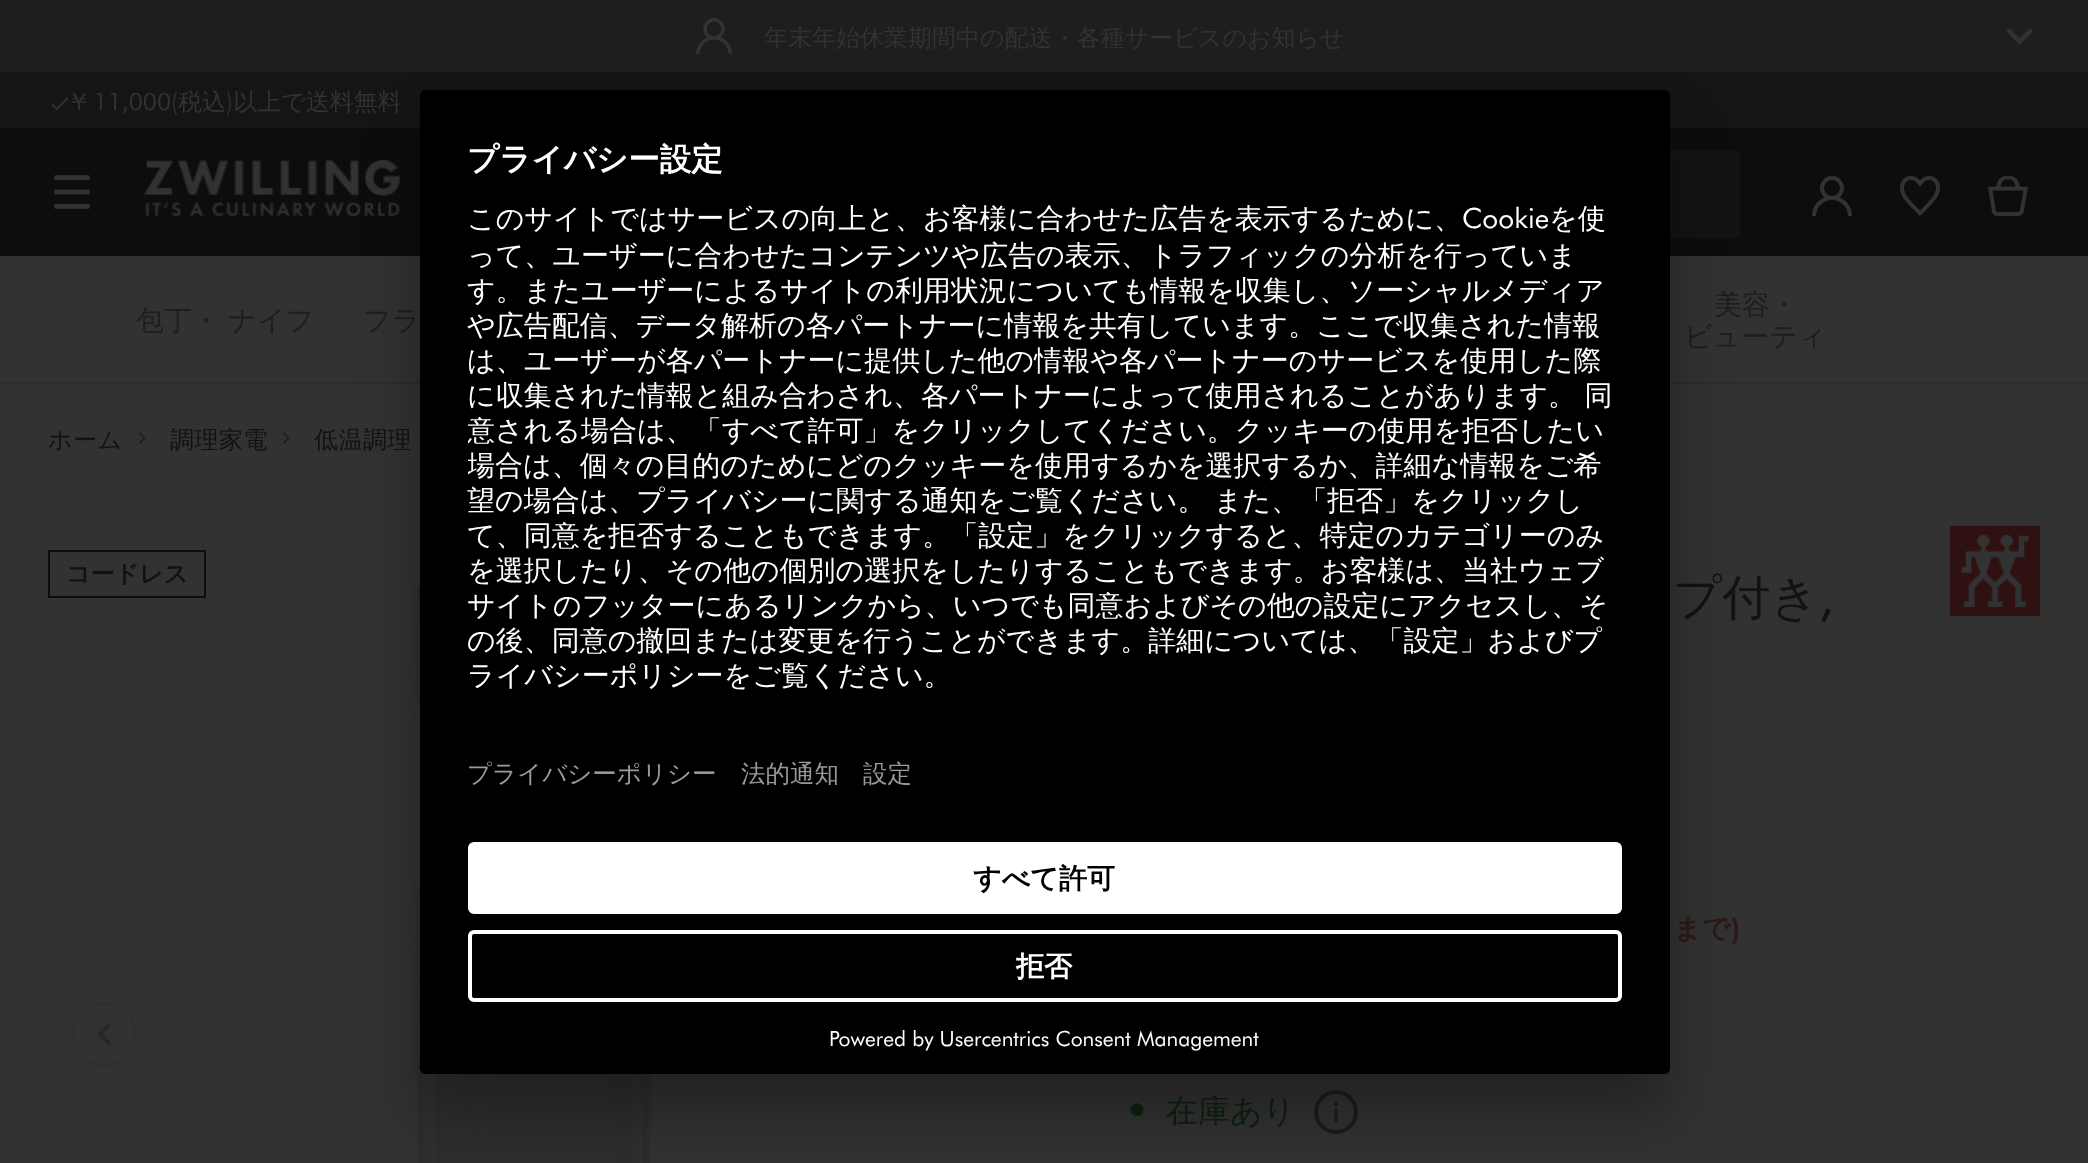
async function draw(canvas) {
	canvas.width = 2088;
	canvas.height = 1163;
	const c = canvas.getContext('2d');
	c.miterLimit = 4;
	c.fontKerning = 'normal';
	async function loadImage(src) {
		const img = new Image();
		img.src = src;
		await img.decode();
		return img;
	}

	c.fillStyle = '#151515';
	c.fillRect(0, 0, 2088, 1163);
	c.fillStyle = '#201e1d';
	c.fillRect(0, 0, 2088, 72);
	c.drawImage(await loadImage('img1.png'), 696, 18, 36, 36);
	c.font = '500 24px WenQuanYi Zen Hei';
	c.fillStyle = '#323232';
	c.fillText('年末年始休業期間中の配送・各種サービスのお知らせ', 764, 46);
	c.drawImage(await loadImage('img2.png'), 2006, 28, 27, 17);
	c.font = '24px Futura';
	c.fillText('¥ 11,000(', 72, 110);
	c.font = '500 24px WenQuanYi Zen Hei';
	c.fillText('税込 以上で送料無料', 178, 110);
	c.drawImage(await loadImage('img3.png'), 51, 97, 18, 14);
	c.font = '24px Futura';
	c.fillText(')', 226, 110);
	c.fillStyle = '#0d0d0d';
	c.fillRect(0, 128, 2088, 128);
	c.drawImage(await loadImage('img4.png'), 54, 175, 36, 34);
	c.drawImage(await loadImage('img5.png'), 144, 160, 256, 57);
	c.fillStyle = '#141313';
	c.beginPath();
	c.roundRect(1480, 150, 260, 88, 6);
	c.fill();
	c.drawImage(await loadImage('img6.png'), 1812, 176, 40, 40);
	c.drawImage(await loadImage('img7.png'), 1900, 176, 40, 40);
	c.drawImage(await loadImage('img8.png'), 1988, 176, 40, 40);
	c.fillStyle = '#323232';
	c.fillRect(0, 256, 2088, 126);
	c.fillStyle = '#2c2c2c';
	c.fillRect(0, 382, 2088, 2);
	c.font = '500 28px WenQuanYi Zen Hei';
	c.fillStyle = '#201d1c';
	for (const [text, x, y] of [
		['包丁・ ナイフ', 136, 330],
		['フラ', 363, 330],
		['美容・', 1714, 314],
		['ビューティ', 1684, 346],
	]) {
		c.fillText(text, x, y);
	}
	c.fillStyle = '#323232';
	c.fillRect(0, 384, 2088, 779);
	c.letterSpacing = '0.5px';
	c.font = '500 24px WenQuanYi Zen Hei';
	c.fillStyle = '#121211';
	c.fillText('ホーム', 48, 448);
	c.drawImage(await loadImage('img9.png'), 139, 432, 7, 12);
	c.fillText('調理家電', 170, 448);
	c.drawImage(await loadImage('img9.png'), 283, 432, 7, 12);
	c.fillText('低温調理', 314, 448);
	c.drawImage(await loadImage('img10.png'), 24, 524, 1020, 639);
	c.beginPath();
	c.arc(104, 1034, 31, 0, 2 * Math.PI);
	c.strokeStyle = '#2f2f2f';
	c.lineWidth = 2;
	c.stroke();
	c.drawImage(await loadImage('img11.png'), 97, 1022, 14, 24);
	c.strokeStyle = '#0d0d0d';
	c.strokeRect(49, 551, 156, 46);
	c.letterSpacing = '0px';
	c.font = 'bold 24px WenQuanYi Zen Hei';
	c.fillText('コードレス', 66, 582);
	c.font = '500 48px WenQuanYi Zen Hei';
	c.fillText('プ付き', 1673, 614);
	c.font = '500 48px Futura';
	c.fillText(',', 1819, 614);
	c.drawImage(await loadImage('img12.png'), 1950, 526, 90, 91);
	c.font = 'bold 28px WenQuanYi Zen Hei';
	c.fillStyle = '#2e1816';
	c.fillText('まで', 1673, 938);
	c.font = 'bold 28px Futura';
	c.fillText(')', 1731, 938);
	c.font = 'bold 44px Futura';
	c.fillStyle = '#0e2110';
	c.fillText('•', 1124, 1126);
	c.font = '500 32px WenQuanYi Zen Hei';
	c.fillText('在庫あり', 1166, 1122);
	c.drawImage(await loadImage('img13.png'), 1314, 1090, 44, 44);
	c.fillStyle = '#0000004d';
	c.filter = 'blur(28px)';
	c.beginPath();
	c.roundRect(420, 130, 1250, 984, 6);
	c.fill();
	c.filter = 'none';
	c.fillStyle = '#000';
	c.beginPath();
	c.roundRect(420, 90, 1250, 984, 6);
	c.fill();
	c.save();
	c.beginPath();
	c.roundRect(420, 90, 1250, 984, 6);
	c.clip();
	c.beginPath();
	c.roundRect(420, 90, 1250, 728, [6, 6, 0, 0]);
	c.clip();
	c.fillRect(420, 92, 1250, 726);
	c.restore();
	c.font = 'bold 31.5px WenQuanYi Zen Hei';
	c.fillStyle = '#fff';
	c.fillText('プライバシー設定', 467, 170);
	c.font = '500 28px WenQuanYi Zen Hei';
	c.fillText('このサイトではサービスの向上と、お客様に合わせた広告を表示するために、', 467, 228);
	c.font = '28px Futura';
	c.fillText('Cookie', 1462, 228);
	c.font = '500 28px WenQuanYi Zen Hei';
	for (const [text, x, y] of [
		['を使', 1549, 228],
		['って、ユーザーに合わせたコンテンツや広告の表示、トラフィックの分析を行っていま', 467, 265],
		['す。またユーザーによるサイトの利用状況についても情報を収集し、ソーシャルメディア', 467, 300],
		['や広告配信、データ解析の各パートナーに情報を共有しています。ここで収集された情報', 467, 335],
		['は、ユーザーが各パートナーに提供した他の情報や各パートナーのサービスを使用した際', 467, 370],
		['に収集された情報と組み合わされ、各パートナーによって使用されることがあります。 同', 467, 405],
	]) {
		c.fillText(text, x, y);
	}
	c.save();
	c.beginPath();
	c.rect(468, 192, 1154, 510);
	c.clip();
	c.fillText('意される場合は、「すべて許可」をクリックしてください。クッキーの使用を拒否したい', 467, 440);
	c.fillText('場合は、個々の目的のためにどのクッキーを使用するかを選択するか、詳細な情報をご希', 467, 475);
	c.restore();
	for (const [text, x, y] of [
		['望の場合は、プライバシーに関する通知をご覧ください。 また、「拒否」をクリックし', 467, 510],
		['て、同意を拒否することもできます。「設定」をクリックすると、特定のカテゴリーのみ', 467, 545],
		['を選択したり、その他の個別の選択をしたりすることもできます。お客様は、当社ウェブ', 467, 580],
		['サイトのフッターにあるリンクから、いつでも同意およびその他の設定にアクセスし、そ', 467, 615],
		['の後、同意の撤回または変更を行うことができます。詳細については、「設定」およびプ', 467, 650],
		['ライバシーポリシーをご覧ください。', 467, 685],
	]) {
		c.fillText(text, x, y);
	}
	c.font = '500 24.5px WenQuanYi Zen Hei';
	c.fillStyle = '#999';
	for (const [text, x, y] of [
		['プライバシーポリシー', 467, 782],
		['法的通知', 741, 782],
		['設定', 863, 782],
	]) {
		c.fillText(text, x, y);
	}
	c.fillStyle = '#000';
	c.beginPath();
	c.roundRect(420, 818, 1250, 256, [0, 0, 6, 6]);
	c.fill();
	c.fillStyle = '#fff';
	c.beginPath();
	c.roundRect(470, 844, 1150, 68, 4);
	c.fill();
	c.strokeStyle = '#fff';
	c.lineWidth = 4;
	c.stroke();
	c.font = 'bold 28px WenQuanYi Zen Hei';
	c.fillStyle = '#000';
	c.fillText('すべて許可', 973, 888);
	c.beginPath();
	c.roundRect(470, 932, 1150, 68, 4);
	c.stroke();
	c.fillStyle = '#fff';
	c.fillText('拒否', 1016, 976);
	c.font = '21px Futura';
	c.fillText('Powered by Usercentrics Consent Management', 829, 1046);
}

draw(document.querySelector('canvas'));
